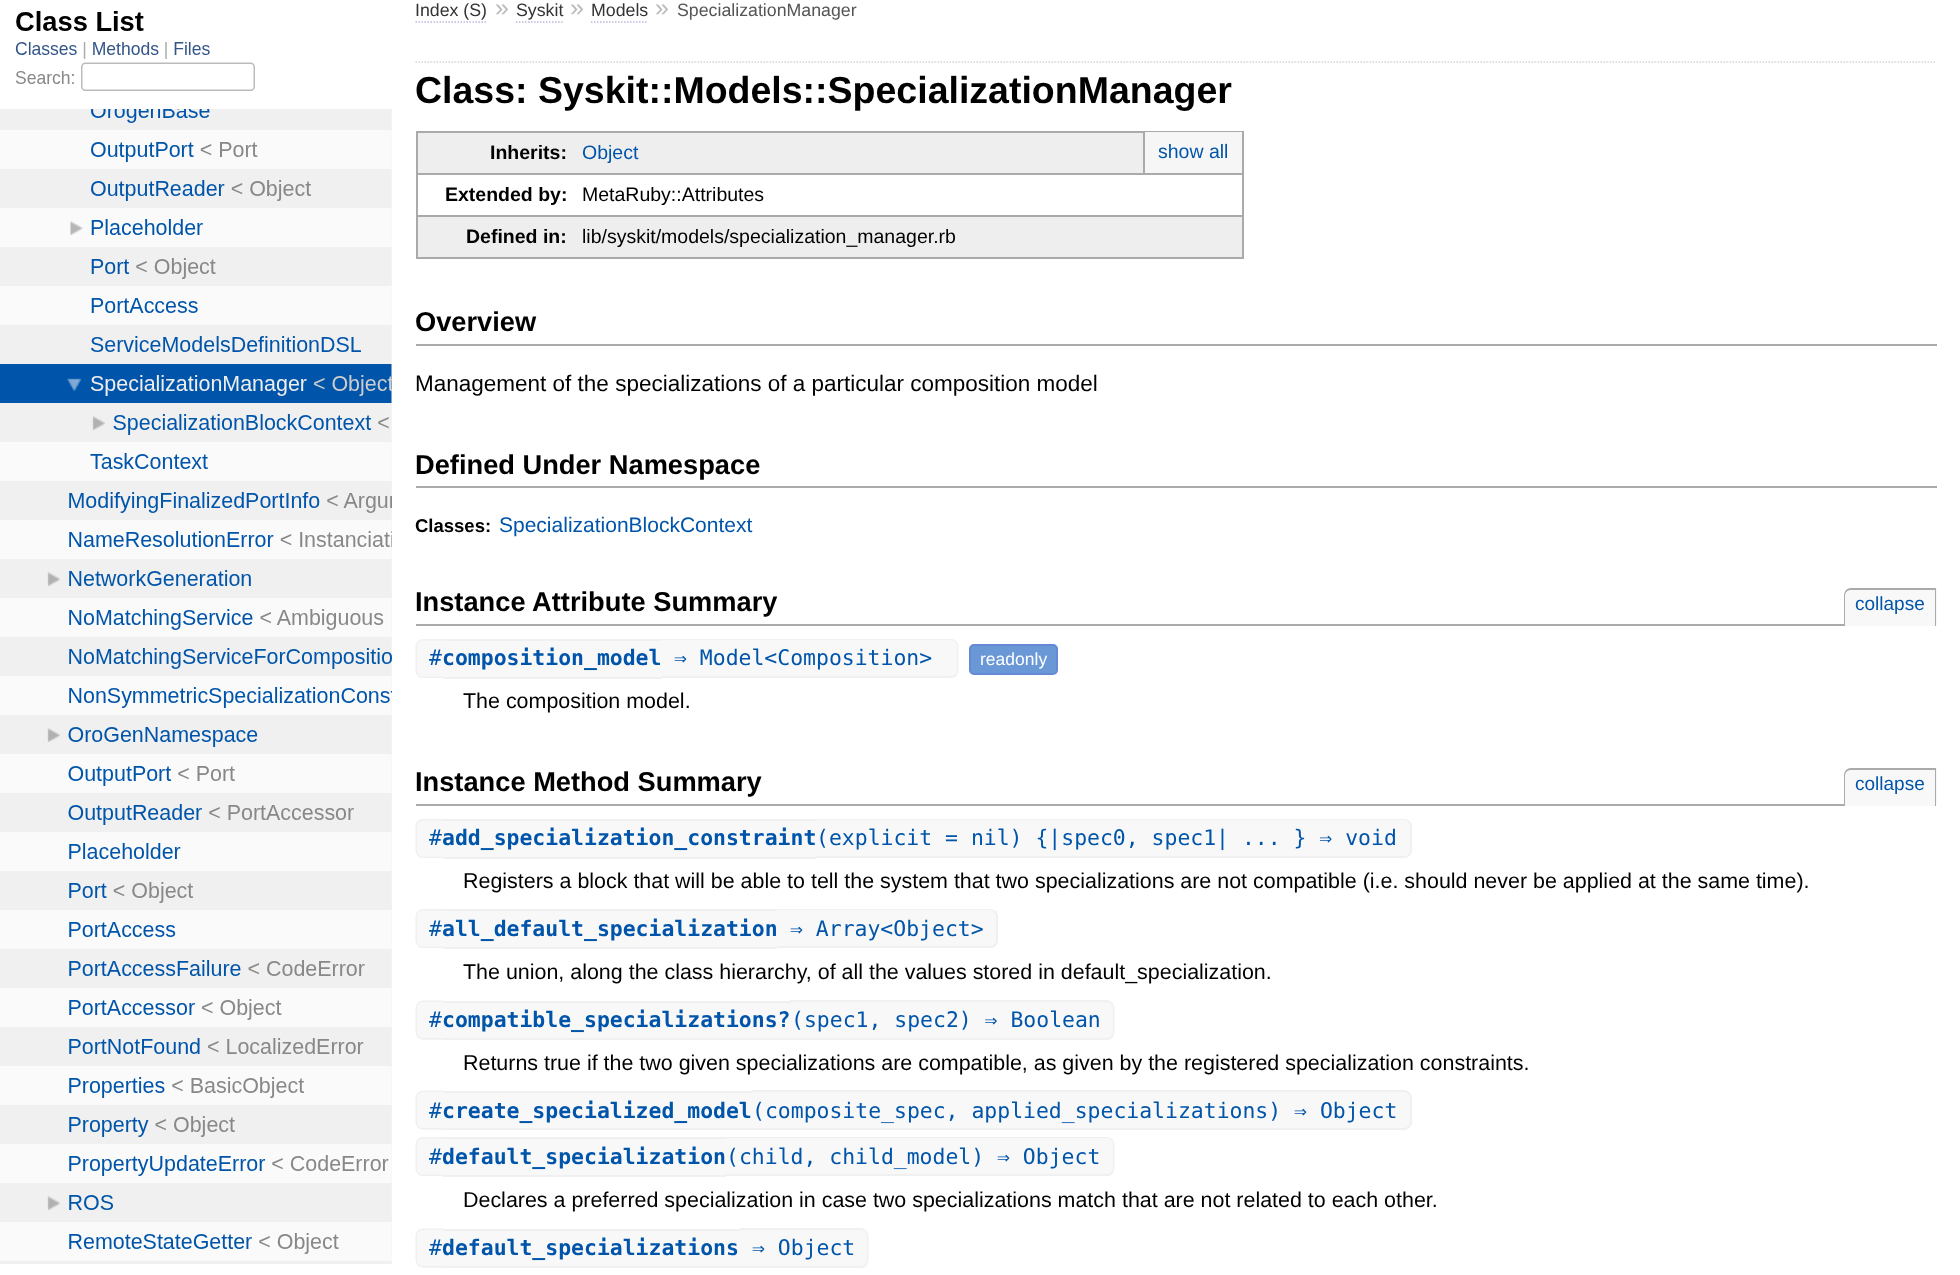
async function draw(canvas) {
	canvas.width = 1960;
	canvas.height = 1275;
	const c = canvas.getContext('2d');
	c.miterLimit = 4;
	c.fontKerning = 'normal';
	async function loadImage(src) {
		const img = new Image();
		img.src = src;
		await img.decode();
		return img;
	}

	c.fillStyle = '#fff';
	c.fillRect(0, 0, 1960, 1275);
	c.drawImage(await loadImage('img1.png'), 0, 1, 392, 1263);
	c.font = '17.75px Liberation Sans';
	c.fillStyle = '#333';
	c.fillText('Index (S)', 415, 16);
	c.beginPath();
	c.moveTo(415.5, 22);
	c.lineTo(487.5, 22);
	c.strokeStyle = '#bbd';
	c.lineWidth = 1.5;
	c.setLineDash([1.5, 1.5]);
	c.stroke();
	c.font = '25px Liberation Sans';
	c.fillStyle = '#bbb';
	c.fillText('»', 495, 16);
	c.font = '17.75px Liberation Sans';
	c.fillStyle = '#333';
	c.fillText('Syskit', 516, 16);
	c.beginPath();
	c.moveTo(516, 22);
	c.lineTo(562.5, 22);
	c.stroke();
	c.font = '25px Liberation Sans';
	c.fillStyle = '#bbb';
	c.fillText('»', 570, 16);
	c.font = '17.75px Liberation Sans';
	c.fillStyle = '#333';
	c.fillText('Models', 591, 16);
	c.beginPath();
	c.moveTo(591, 22);
	c.lineTo(648, 22);
	c.stroke();
	c.font = '25px Liberation Sans';
	c.fillStyle = '#bbb';
	c.fillText('»', 655, 16);
	c.font = '17.75px Liberation Sans';
	c.fillStyle = '#555';
	c.fillText('SpecializationManager', 677, 16);
	c.beginPath();
	c.moveTo(415.5, 62);
	c.lineTo(1936.5, 62);
	c.strokeStyle = '#d5d5d5';
	c.stroke();
	c.font = 'bold 37.5px Liberation Sans';
	c.fillStyle = '#000';
	c.fillText('Class: Syskit::Models::SpecializationManager', 415, 103);
	for (const [x, y, w, h, color] of [
		[418, 133, 725, 40, '#eee'],
		[416, 131, 828, 2, '#aaa'],
		[416, 131, 2, 42, '#aaa'],
	]) {
		c.fillStyle = color;
		c.fillRect(x, y, w, h);
	}
	c.font = 'bold 19.5px Liberation Sans';
	c.fillStyle = '#000';
	c.fillText('Inherits:', 490, 159);
	for (const [x, y, w, h, color] of [
		[416, 173, 828, 2, '#aaa'],
		[416, 215, 828, 2, '#aaa'],
		[1242, 131, 2, 127, '#aaa'],
	]) {
		c.fillStyle = color;
		c.fillRect(x, y, w, h);
	}
	c.font = '19.5px Liberation Sans';
	c.fillStyle = '#05a';
	c.fillText('Object', 582, 159);
	c.fillStyle = '#f6f6f6';
	c.fillRect(1145, 132, 97, 41);
	c.fillStyle = '#aaa';
	c.fillRect(1143, 132, 2, 41);
	c.fillStyle = '#05a';
	c.fillText('show all', 1158, 158);
	c.fillStyle = '#aaa';
	c.fillRect(416, 173, 2, 42);
	c.font = 'bold 19.5px Liberation Sans';
	c.fillStyle = '#000';
	c.fillText('Extended by:', 445, 201);
	c.font = '19.5px Liberation Sans';
	c.fillText('MetaRuby::Attributes', 582, 201);
	for (const [x, y, w, h, color] of [
		[418, 217, 824, 40, '#eee'],
		[416, 257, 166, 2, '#aaa'],
		[416, 215, 2, 43, '#aaa'],
	]) {
		c.fillStyle = color;
		c.fillRect(x, y, w, h);
	}
	c.font = 'bold 19.5px Liberation Sans';
	c.fillStyle = '#000';
	c.fillText('Defined in:', 466, 243);
	c.fillStyle = '#aaa';
	c.fillRect(582, 257, 662, 2);
	c.font = '19.5px Liberation Sans';
	c.fillStyle = '#000';
	c.fillText('lib/syskit/models/specialization_manager.rb', 582, 243);
	c.fillStyle = '#aaa';
	c.fillRect(416, 344, 1521, 2);
	c.font = 'bold 27.25px Liberation Sans';
	c.fillStyle = '#000';
	c.fillText('Overview', 415, 331);
	c.font = '22.5px Liberation Sans';
	c.fillText('Management of the specializations of a particular composition model', 415, 391);
	c.fillStyle = '#aaa';
	c.fillRect(416, 486, 1521, 2);
	c.font = 'bold 27.25px Liberation Sans';
	c.fillStyle = '#000';
	c.fillText('Defined Under Namespace', 415, 474);
	c.font = 'bold 18.5px Liberation Sans';
	c.fillText('Classes:', 415, 532);
	c.font = '21px Liberation Sans';
	c.fillStyle = '#05a';
	c.fillText('SpecializationBlockContext', 499, 532);
	c.fillStyle = '#aaa';
	c.fillRect(416, 624, 1428, 2);
	c.font = 'bold 27.25px Liberation Sans';
	c.fillStyle = '#000';
	c.fillText('Instance Attribute Summary', 415, 611);
	c.fillStyle = '#f8f8f8';
	c.beginPath();
	c.roundRect(1844, 588, 93, 38, [8, 0, 0, 0]);
	c.fill();
	c.fillStyle = '#aaa';
	c.beginPath();
	c.moveTo(1851, 588);
	c.lineTo(1936, 588);
	c.lineTo(1936, 626);
	c.lineTo(1844, 626);
	c.lineTo(1844, 596);
	c.bezierCurveTo(1844, 591, 1847, 588, 1851, 588);
	c.closePath();
	c.moveTo(1851, 590);
	c.lineTo(1935, 590);
	c.lineTo(1935, 626);
	c.lineTo(1845, 626);
	c.lineTo(1845, 596);
	c.bezierCurveTo(1845, 592, 1848, 590, 1851, 590);
	c.closePath();
	c.fill('evenodd');
	c.font = '19px Liberation Sans';
	c.fillStyle = '#05a';
	c.fillText('collapse', 1855, 610);
	c.fillStyle = '#f8f8f8';
	c.beginPath();
	c.roundRect(416, 639, 27, 39, [8, 0, 0, 8]);
	c.fill();
	c.fillStyle = '#f0f0f0';
	c.beginPath();
	c.moveTo(423, 639);
	c.lineTo(442.5, 639);
	c.lineTo(442.5, 678);
	c.lineTo(423, 678);
	c.bezierCurveTo(419, 678, 415.5, 674.5, 415.5, 670.5);
	c.lineTo(415.5, 646.5);
	c.bezierCurveTo(415.5, 642.5, 419, 639, 423, 639);
	c.closePath();
	c.moveTo(423, 640.5);
	c.lineTo(442.5, 640.5);
	c.lineTo(442.5, 676.5);
	c.lineTo(423, 676.5);
	c.bezierCurveTo(419.5, 676.5, 417, 674, 417, 670.5);
	c.lineTo(417, 646.5);
	c.bezierCurveTo(417, 643, 419.5, 640.5, 423, 640.5);
	c.closePath();
	c.fill('evenodd');
	c.font = '21.45px DejaVu Sans Mono';
	c.fillStyle = '#05a';
	c.fillText('#', 429, 665);
	c.fillStyle = '#f0f0f0';
	c.fillRect(443, 639, 219, 2);
	c.fillStyle = '#f8f8f8';
	c.fillRect(443, 641, 219, 36);
	c.font = 'bold 21.45px DejaVu Sans Mono';
	c.fillStyle = '#05a';
	c.fillText('composition_model', 442, 665);
	c.fillStyle = '#f0f0f0';
	c.fillRect(443, 677, 219, 2);
	c.fillStyle = '#f8f8f8';
	c.beginPath();
	c.roundRect(662, 639, 297, 39, [0, 8, 8, 0]);
	c.fill();
	c.fillStyle = '#f0f0f0';
	c.beginPath();
	c.moveTo(662, 639);
	c.lineTo(951, 639);
	c.bezierCurveTo(955, 639, 958, 642, 958, 646);
	c.lineTo(958, 670);
	c.bezierCurveTo(958, 675, 955, 678, 951, 678);
	c.lineTo(662, 678);
	c.closePath();
	c.moveTo(662, 640);
	c.lineTo(951, 640);
	c.bezierCurveTo(954, 640, 957, 643, 957, 646);
	c.lineTo(957, 670);
	c.bezierCurveTo(957, 674, 954, 676, 951, 676);
	c.lineTo(662, 676);
	c.closePath();
	c.fill('evenodd');
	c.font = '21.45px DejaVu Sans Mono';
	c.fillStyle = '#05a';
	c.fillText('⇒ Model<Composition>', 674, 665);
	c.fillStyle = '#6a98d6';
	c.beginPath();
	c.roundRect(970, 645, 87, 29, 4);
	c.fill();
	c.strokeStyle = '#6689d6';
	c.lineWidth = 2;
	c.setLineDash([]);
	c.stroke();
	c.font = '17.5px Liberation Sans';
	c.fillStyle = '#fff';
	c.fillText('readonly', 980, 665);
	c.font = '21.45px Liberation Sans';
	c.fillStyle = '#000';
	c.fillText('The composition model.', 463, 708);
	c.fillStyle = '#aaa';
	c.fillRect(416, 804, 1428, 2);
	c.font = 'bold 27.25px Liberation Sans';
	c.fillStyle = '#000';
	c.fillText('Instance Method Summary', 415, 791);
	c.fillStyle = '#f8f8f8';
	c.beginPath();
	c.roundRect(1844, 768, 93, 38, [8, 0, 0, 0]);
	c.fill();
	c.fillStyle = '#aaa';
	c.beginPath();
	c.moveTo(1851, 768);
	c.lineTo(1936, 768);
	c.lineTo(1936, 806);
	c.lineTo(1844, 806);
	c.lineTo(1844, 776);
	c.bezierCurveTo(1844, 771, 1847, 768, 1851, 768);
	c.closePath();
	c.moveTo(1851, 770);
	c.lineTo(1935, 770);
	c.lineTo(1935, 806);
	c.lineTo(1845, 806);
	c.lineTo(1845, 776);
	c.bezierCurveTo(1845, 772, 1848, 770, 1851, 770);
	c.closePath();
	c.fill('evenodd');
	c.font = '19px Liberation Sans';
	c.fillStyle = '#05a';
	c.fillText('collapse', 1855, 790);
	c.fillStyle = '#f8f8f8';
	c.beginPath();
	c.roundRect(416, 819, 27, 39, [8, 0, 0, 8]);
	c.fill();
	c.fillStyle = '#f0f0f0';
	c.beginPath();
	c.moveTo(423, 819);
	c.lineTo(442.5, 819);
	c.lineTo(442.5, 858);
	c.lineTo(423, 858);
	c.bezierCurveTo(419, 858, 415.5, 854.5, 415.5, 850.5);
	c.lineTo(415.5, 826.5);
	c.bezierCurveTo(415.5, 822.5, 419, 819, 423, 819);
	c.closePath();
	c.moveTo(423, 820.5);
	c.lineTo(442.5, 820.5);
	c.lineTo(442.5, 856.5);
	c.lineTo(423, 856.5);
	c.bezierCurveTo(419.5, 856.5, 417, 854, 417, 850.5);
	c.lineTo(417, 826.5);
	c.bezierCurveTo(417, 823, 419.5, 820.5, 423, 820.5);
	c.closePath();
	c.fill('evenodd');
	c.font = '21.45px DejaVu Sans Mono';
	c.fillStyle = '#05a';
	c.fillText('#', 429, 845);
	c.fillStyle = '#f0f0f0';
	c.fillRect(443, 819, 373, 2);
	c.fillStyle = '#f8f8f8';
	c.fillRect(443, 821, 373, 36);
	c.font = 'bold 21.45px DejaVu Sans Mono';
	c.fillStyle = '#05a';
	c.fillText('add_specialization_constraint', 442, 845);
	c.fillStyle = '#f0f0f0';
	c.fillRect(443, 857, 373, 2);
	c.fillStyle = '#f8f8f8';
	c.beginPath();
	c.roundRect(816, 819, 596, 39, [0, 8, 8, 0]);
	c.fill();
	c.fillStyle = '#f0f0f0';
	c.beginPath();
	c.moveTo(816, 819);
	c.lineTo(1404, 819);
	c.bezierCurveTo(1408, 819, 1412, 822, 1412, 826);
	c.lineTo(1412, 850);
	c.bezierCurveTo(1412, 855, 1408, 858, 1404, 858);
	c.lineTo(816, 858);
	c.closePath();
	c.moveTo(816, 820);
	c.lineTo(1404, 820);
	c.bezierCurveTo(1407, 820, 1410, 823, 1410, 826);
	c.lineTo(1410, 850);
	c.bezierCurveTo(1410, 854, 1407, 856, 1404, 856);
	c.lineTo(816, 856);
	c.closePath();
	c.fill('evenodd');
	c.font = '21.45px DejaVu Sans Mono';
	c.fillStyle = '#05a';
	c.fillText('(explicit = nil) {|spec0, spec1| ... } ⇒ void', 816, 845);
	c.font = '21.45px Liberation Sans';
	c.fillStyle = '#000';
	c.fillText('Registers a block that will be able to tell the system that two specializations are not compatible (i.e. should never be applied at the same time).', 463, 888);
	c.fillStyle = '#f8f8f8';
	c.beginPath();
	c.roundRect(416, 909, 27, 39, [8, 0, 0, 8]);
	c.fill();
	c.fillStyle = '#f0f0f0';
	c.beginPath();
	c.moveTo(423, 909);
	c.lineTo(442.5, 909);
	c.lineTo(442.5, 948);
	c.lineTo(423, 948);
	c.bezierCurveTo(419, 948, 415.5, 944.5, 415.5, 940.5);
	c.lineTo(415.5, 916.5);
	c.bezierCurveTo(415.5, 912.5, 419, 909, 423, 909);
	c.closePath();
	c.moveTo(423, 910.5);
	c.lineTo(442.5, 910.5);
	c.lineTo(442.5, 946.5);
	c.lineTo(423, 946.5);
	c.bezierCurveTo(419.5, 946.5, 417, 944, 417, 940.5);
	c.lineTo(417, 916.5);
	c.bezierCurveTo(417, 913, 419.5, 910.5, 423, 910.5);
	c.closePath();
	c.fill('evenodd');
	c.font = '21.45px DejaVu Sans Mono';
	c.fillStyle = '#05a';
	c.fillText('#', 429, 936);
	c.fillStyle = '#f0f0f0';
	c.fillRect(443, 909, 334, 2);
	c.fillStyle = '#f8f8f8';
	c.fillRect(443, 911, 334, 36);
	c.font = 'bold 21.45px DejaVu Sans Mono';
	c.fillStyle = '#05a';
	c.fillText('all_default_specialization', 442, 936);
	c.fillStyle = '#f0f0f0';
	c.fillRect(443, 947, 334, 2);
	c.fillStyle = '#f8f8f8';
	c.beginPath();
	c.roundRect(777, 909, 221, 39, [0, 8, 8, 0]);
	c.fill();
	c.fillStyle = '#f0f0f0';
	c.beginPath();
	c.moveTo(777, 909);
	c.lineTo(990, 909);
	c.bezierCurveTo(994, 909, 998, 912, 998, 916);
	c.lineTo(998, 940);
	c.bezierCurveTo(998, 945, 994, 948, 990, 948);
	c.lineTo(777, 948);
	c.closePath();
	c.moveTo(777, 910);
	c.lineTo(990, 910);
	c.bezierCurveTo(993, 910, 996, 913, 996, 916);
	c.lineTo(996, 940);
	c.bezierCurveTo(996, 944, 993, 946, 990, 946);
	c.lineTo(777, 946);
	c.closePath();
	c.fill('evenodd');
	c.font = '21.45px DejaVu Sans Mono';
	c.fillStyle = '#05a';
	c.fillText('⇒ Array<Object>', 790, 936);
	c.font = '21.45px Liberation Sans';
	c.fillStyle = '#000';
	c.fillText('The union, along the class hierarchy, of all the values stored in default_specialization.', 463, 979);
	c.fillStyle = '#f8f8f8';
	c.beginPath();
	c.roundRect(416, 1001, 27, 39, [8, 0, 0, 8]);
	c.fill();
	c.fillStyle = '#f0f0f0';
	c.beginPath();
	c.moveTo(423, 1000.5);
	c.lineTo(442.5, 1000.5);
	c.lineTo(442.5, 1039.5);
	c.lineTo(423, 1039.5);
	c.bezierCurveTo(419, 1039.5, 415.5, 1036, 415.5, 1032);
	c.lineTo(415.5, 1008);
	c.bezierCurveTo(415.5, 1004, 419, 1000.5, 423, 1000.5);
	c.closePath();
	c.moveTo(423, 1002);
	c.lineTo(442.5, 1002);
	c.lineTo(442.5, 1038);
	c.lineTo(423, 1038);
	c.bezierCurveTo(419.5, 1038, 417, 1035.5, 417, 1032);
	c.lineTo(417, 1008);
	c.bezierCurveTo(417, 1004.5, 419.5, 1002, 423, 1002);
	c.closePath();
	c.fill('evenodd');
	c.font = '21.45px DejaVu Sans Mono';
	c.fillStyle = '#05a';
	c.fillText('#', 429, 1027);
	c.fillStyle = '#f0f0f0';
	c.fillRect(443, 1001, 348, 2);
	c.fillStyle = '#f8f8f8';
	c.fillRect(443, 1003, 348, 35);
	c.font = 'bold 21.45px DejaVu Sans Mono';
	c.fillStyle = '#05a';
	c.fillText('compatible_specializations?', 442, 1027);
	c.fillStyle = '#f0f0f0';
	c.fillRect(443, 1038, 348, 2);
	c.fillStyle = '#f8f8f8';
	c.beginPath();
	c.roundRect(791, 1001, 324, 39, [0, 8, 8, 0]);
	c.fill();
	c.fillStyle = '#f0f0f0';
	c.beginPath();
	c.moveTo(790, 1000);
	c.lineTo(1107, 1000);
	c.bezierCurveTo(1111, 1000, 1114, 1004, 1114, 1008);
	c.lineTo(1114, 1032);
	c.bezierCurveTo(1114, 1036, 1111, 1040, 1107, 1040);
	c.lineTo(790, 1040);
	c.closePath();
	c.moveTo(790, 1002);
	c.lineTo(1107, 1002);
	c.bezierCurveTo(1110, 1002, 1113, 1005, 1113, 1008);
	c.lineTo(1113, 1032);
	c.bezierCurveTo(1113, 1035, 1110, 1038, 1107, 1038);
	c.lineTo(790, 1038);
	c.closePath();
	c.fill('evenodd');
	c.font = '21.45px DejaVu Sans Mono';
	c.fillStyle = '#05a';
	c.fillText('(spec1, spec2) ⇒ Boolean', 791, 1027);
	c.font = '21.45px Liberation Sans';
	c.fillStyle = '#000';
	c.fillText('Returns true if the two given specializations are compatible, as given by the registered specialization constraints.', 463, 1070);
	c.fillStyle = '#f8f8f8';
	c.beginPath();
	c.roundRect(416, 1091, 27, 39, [8, 0, 0, 8]);
	c.fill();
	c.fillStyle = '#f0f0f0';
	c.beginPath();
	c.moveTo(423, 1090.5);
	c.lineTo(442.5, 1090.5);
	c.lineTo(442.5, 1129.5);
	c.lineTo(423, 1129.5);
	c.bezierCurveTo(419, 1129.5, 415.5, 1126, 415.5, 1122);
	c.lineTo(415.5, 1098);
	c.bezierCurveTo(415.5, 1094, 419, 1090.5, 423, 1090.5);
	c.closePath();
	c.moveTo(423, 1092);
	c.lineTo(442.5, 1092);
	c.lineTo(442.5, 1128);
	c.lineTo(423, 1128);
	c.bezierCurveTo(419.5, 1128, 417, 1125.5, 417, 1122);
	c.lineTo(417, 1098);
	c.bezierCurveTo(417, 1094.5, 419.5, 1092, 423, 1092);
	c.closePath();
	c.fill('evenodd');
	c.font = '21.45px DejaVu Sans Mono';
	c.fillStyle = '#05a';
	c.fillText('#', 429, 1118);
	c.fillStyle = '#f8f8f8';
	c.fillRect(443, 1093, 309, 35);
	c.fillStyle = '#f0f0f0';
	c.fillRect(443, 1091, 309, 2);
	c.font = 'bold 21.45px DejaVu Sans Mono';
	c.fillStyle = '#05a';
	c.fillText('create_specialized_model', 442, 1118);
	c.fillStyle = '#f0f0f0';
	c.fillRect(443, 1128, 309, 2);
	c.fillStyle = '#f8f8f8';
	c.beginPath();
	c.roundRect(752, 1091, 660, 39, [0, 8, 8, 0]);
	c.fill();
	c.fillStyle = '#f0f0f0';
	c.beginPath();
	c.moveTo(752, 1090);
	c.lineTo(1404, 1090);
	c.bezierCurveTo(1408, 1090, 1412, 1094, 1412, 1098);
	c.lineTo(1412, 1122);
	c.bezierCurveTo(1412, 1126, 1408, 1130, 1404, 1130);
	c.lineTo(752, 1130);
	c.closePath();
	c.moveTo(752, 1092);
	c.lineTo(1404, 1092);
	c.bezierCurveTo(1407, 1092, 1410, 1095, 1410, 1098);
	c.lineTo(1410, 1122);
	c.bezierCurveTo(1410, 1125, 1407, 1128, 1404, 1128);
	c.lineTo(752, 1128);
	c.closePath();
	c.fill('evenodd');
	c.font = '21.45px DejaVu Sans Mono';
	c.fillStyle = '#05a';
	c.fillText('(composite_spec, applied_specializations) ⇒ Object', 752, 1118);
	c.fillStyle = '#f8f8f8';
	c.beginPath();
	c.roundRect(416, 1137, 27, 39, [8, 0, 0, 8]);
	c.fill();
	c.fillStyle = '#f0f0f0';
	c.beginPath();
	c.moveTo(423, 1137);
	c.lineTo(442.5, 1137);
	c.lineTo(442.5, 1176);
	c.lineTo(423, 1176);
	c.bezierCurveTo(419, 1176, 415.5, 1172.5, 415.5, 1168.5);
	c.lineTo(415.5, 1144.5);
	c.bezierCurveTo(415.5, 1140.5, 419, 1137, 423, 1137);
	c.closePath();
	c.moveTo(423, 1138.5);
	c.lineTo(442.5, 1138.5);
	c.lineTo(442.5, 1174.5);
	c.lineTo(423, 1174.5);
	c.bezierCurveTo(419.5, 1174.5, 417, 1172, 417, 1168.5);
	c.lineTo(417, 1144.5);
	c.bezierCurveTo(417, 1141, 419.5, 1138.5, 423, 1138.5);
	c.closePath();
	c.fill('evenodd');
	c.fillStyle = '#05a';
	c.fillText('#', 429, 1164);
	c.fillStyle = '#f0f0f0';
	c.fillRect(443, 1137, 283, 2);
	c.fillStyle = '#f8f8f8';
	c.fillRect(443, 1139, 283, 36);
	c.font = 'bold 21.45px DejaVu Sans Mono';
	c.fillStyle = '#05a';
	c.fillText('default_specialization', 442, 1164);
	c.fillStyle = '#f0f0f0';
	c.fillRect(443, 1175, 283, 2);
	c.fillStyle = '#f8f8f8';
	c.beginPath();
	c.roundRect(726, 1137, 389, 39, [0, 8, 8, 0]);
	c.fill();
	c.fillStyle = '#f0f0f0';
	c.beginPath();
	c.moveTo(726, 1137);
	c.lineTo(1107, 1137);
	c.bezierCurveTo(1111, 1137, 1114, 1140, 1114, 1144);
	c.lineTo(1114, 1168);
	c.bezierCurveTo(1114, 1173, 1111, 1176, 1107, 1176);
	c.lineTo(726, 1176);
	c.closePath();
	c.moveTo(726, 1138);
	c.lineTo(1107, 1138);
	c.bezierCurveTo(1110, 1138, 1113, 1141, 1113, 1144);
	c.lineTo(1113, 1168);
	c.bezierCurveTo(1113, 1172, 1110, 1174, 1107, 1174);
	c.lineTo(726, 1174);
	c.closePath();
	c.fill('evenodd');
	c.font = '21.45px DejaVu Sans Mono';
	c.fillStyle = '#05a';
	c.fillText('(child, child_model) ⇒ Object', 726, 1164);
	c.font = '21.45px Liberation Sans';
	c.fillStyle = '#000';
	c.fillText('Declares a preferred specialization in case two specializations match that are not related to each other.', 463, 1207);
	c.fillStyle = '#f8f8f8';
	c.beginPath();
	c.roundRect(416, 1229, 27, 39, [8, 0, 0, 8]);
	c.fill();
	c.fillStyle = '#f0f0f0';
	c.beginPath();
	c.moveTo(423, 1228.5);
	c.lineTo(442.5, 1228.5);
	c.lineTo(442.5, 1267.5);
	c.lineTo(423, 1267.5);
	c.bezierCurveTo(419, 1267.5, 415.5, 1264, 415.5, 1260);
	c.lineTo(415.5, 1236);
	c.bezierCurveTo(415.5, 1232, 419, 1228.5, 423, 1228.5);
	c.closePath();
	c.moveTo(423, 1230);
	c.lineTo(442.5, 1230);
	c.lineTo(442.5, 1266);
	c.lineTo(423, 1266);
	c.bezierCurveTo(419.5, 1266, 417, 1263.5, 417, 1260);
	c.lineTo(417, 1236);
	c.bezierCurveTo(417, 1232.5, 419.5, 1230, 423, 1230);
	c.closePath();
	c.fill('evenodd');
	c.font = '21.45px DejaVu Sans Mono';
	c.fillStyle = '#05a';
	c.fillText('#', 429, 1255);
	c.fillStyle = '#f0f0f0';
	c.fillRect(443, 1229, 297, 2);
	c.fillStyle = '#f8f8f8';
	c.fillRect(443, 1231, 297, 35);
	c.font = 'bold 21.45px DejaVu Sans Mono';
	c.fillStyle = '#05a';
	c.fillText('default_specializations', 442, 1255);
	c.fillStyle = '#f0f0f0';
	c.fillRect(443, 1266, 297, 2);
	c.fillStyle = '#f8f8f8';
	c.beginPath();
	c.roundRect(740, 1229, 129, 39, [0, 8, 8, 0]);
	c.fill();
	c.fillStyle = '#f0f0f0';
	c.beginPath();
	c.moveTo(740, 1228);
	c.lineTo(861, 1228);
	c.bezierCurveTo(865, 1228, 868, 1232, 868, 1236);
	c.lineTo(868, 1260);
	c.bezierCurveTo(868, 1264, 865, 1268, 861, 1268);
	c.lineTo(740, 1268);
	c.closePath();
	c.moveTo(740, 1230);
	c.lineTo(861, 1230);
	c.bezierCurveTo(864, 1230, 867, 1233, 867, 1236);
	c.lineTo(867, 1260);
	c.bezierCurveTo(867, 1263, 864, 1266, 861, 1266);
	c.lineTo(740, 1266);
	c.closePath();
	c.fill('evenodd');
	c.font = '21.45px DejaVu Sans Mono';
	c.fillStyle = '#05a';
	c.fillText('⇒ Object', 752, 1255);
}

draw(document.querySelector('canvas'));
